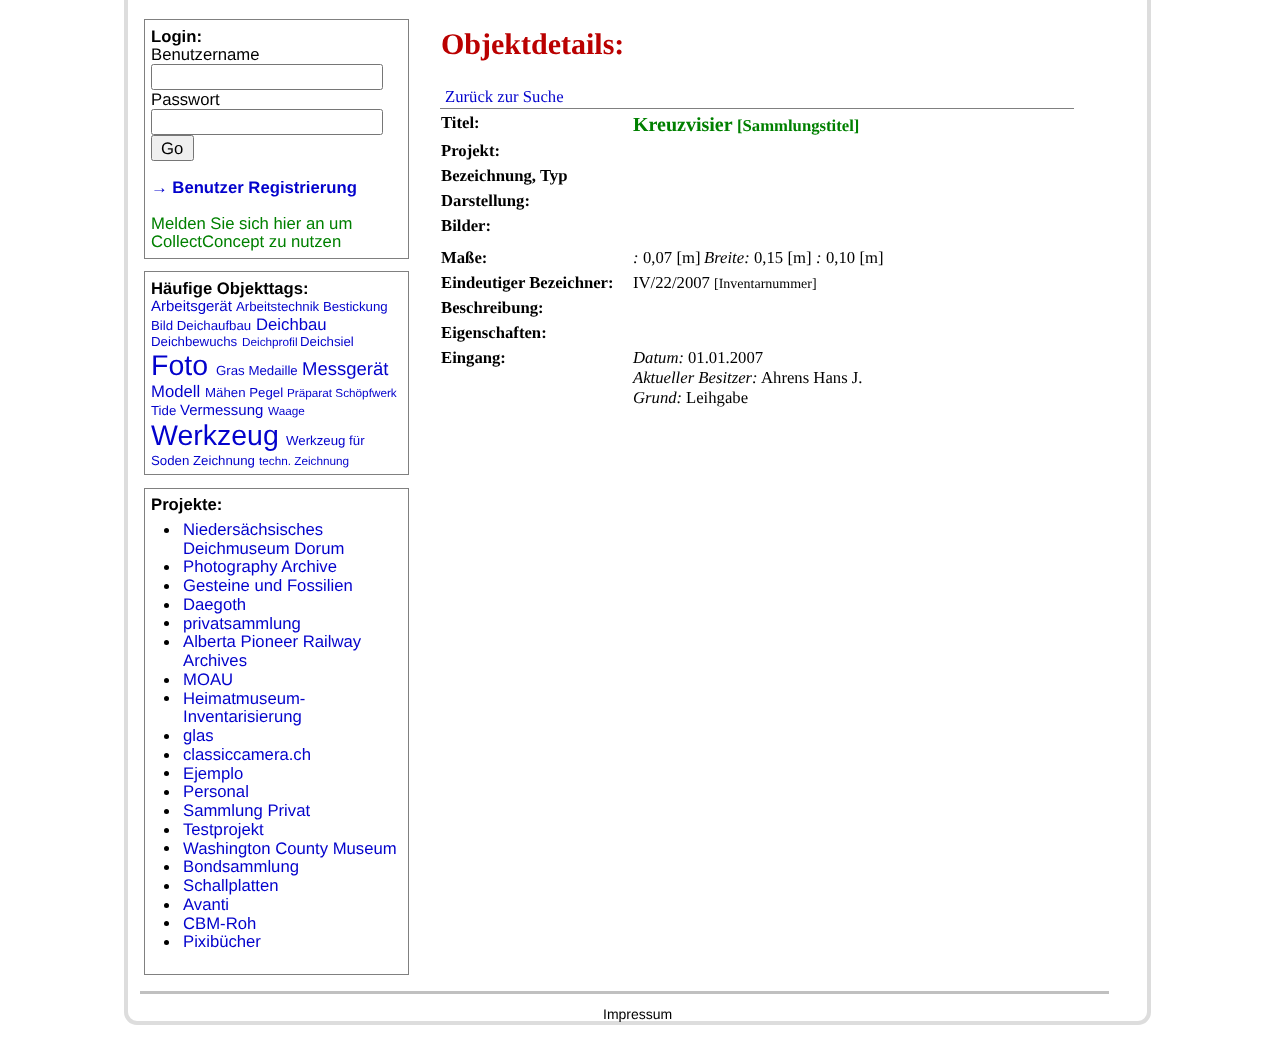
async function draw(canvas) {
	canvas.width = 1275;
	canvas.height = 1050;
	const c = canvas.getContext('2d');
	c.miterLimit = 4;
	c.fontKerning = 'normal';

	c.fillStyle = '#fff';
	c.fillRect(0, 0, 1275, 1050);
	c.beginPath();
	c.roundRect(126, -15, 1023, 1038, 11);
	c.strokeStyle = '#ddd';
	c.lineWidth = 4;
	c.stroke();
	c.fillStyle = '#c0c0c0';
	c.fillRect(140, 991, 969, 3);
	c.strokeStyle = '#808080';
	c.lineWidth = 1;
	c.strokeRect(144.5, 19.5, 264, 239);
	c.font = 'bold 16.7px Liberation Sans';
	c.fillStyle = '#000';
	c.fillText('Login:', 151, 42);
	c.font = '16.7px Liberation Sans';
	c.fillText('Benutzername', 151, 60);
	c.beginPath();
	c.roundRect(151.5, 64.5, 231, 25, 2);
	c.strokeStyle = '#767676';
	c.stroke();
	c.fillText('Passwort', 151, 105);
	c.beginPath();
	c.roundRect(151.5, 109.5, 231, 25, 2);
	c.stroke();
	c.fillStyle = '#efefef';
	c.beginPath();
	c.roundRect(151.5, 135.5, 42, 25, 2);
	c.fill();
	c.stroke();
	c.fillStyle = '#000';
	c.fillText('Go', 161, 154);
	c.font = 'bold 16.7px Liberation Sans';
	c.fillStyle = '#0302cc';
	c.fillText('→ Benutzer Registrierung', 151, 193);
	c.font = '16.7px Liberation Sans';
	c.fillStyle = '#008000';
	c.fillText('Melden Sie sich hier an um', 151, 229);
	c.fillText('CollectConcept zu nutzen', 151, 247);
	c.strokeStyle = '#808080';
	c.strokeRect(144.5, 271.5, 264, 203);
	c.font = 'bold 16.7px Liberation Sans';
	c.fillStyle = '#000';
	c.fillText('Häufige Objekttags:', 151, 294);
	c.font = '15px Liberation Sans';
	c.fillStyle = '#0302cc';
	c.fillText('Arbeitsgerät', 151, 311);
	c.font = '13.25px Liberation Sans';
	c.fillText('Arbeitstechnik Bestickung', 236, 311);
	c.fillText('Bild Deichaufbau', 151, 330);
	c.font = '16.7px Liberation Sans';
	c.fillText('Deichbau', 256, 330);
	c.font = '13.25px Liberation Sans';
	c.fillText('Deichbewuchs', 151, 346);
	c.font = '11.75px Liberation Sans';
	c.fillText('Deichprofil', 242, 346);
	c.font = '13.25px Liberation Sans';
	c.fillText('Deichsiel', 300, 346);
	c.font = '28.5px Liberation Sans';
	c.fillText('Foto', 151, 375);
	c.font = '13.25px Liberation Sans';
	c.fillText('Gras Medaille', 216, 375);
	c.font = '18.5px Liberation Sans';
	c.fillText('Messgerät', 302, 375);
	c.font = '16.7px Liberation Sans';
	c.fillText('Modell', 151, 397);
	c.font = '13.25px Liberation Sans';
	c.fillText('Mähen Pegel', 205, 397);
	c.font = '11.75px Liberation Sans';
	c.fillText('Präparat Schöpfwerk', 287, 397);
	c.font = '13.25px Liberation Sans';
	c.fillText('Tide', 151, 415);
	c.font = '15px Liberation Sans';
	c.fillText('Vermessung', 180, 415);
	c.font = '11.75px Liberation Sans';
	c.fillText('Waage', 268, 415);
	c.font = '28.5px Liberation Sans';
	c.fillText('Werkzeug', 151, 445);
	c.font = '13.25px Liberation Sans';
	c.fillText('Werkzeug für', 286, 445);
	c.fillText('Soden Zeichnung', 151, 465);
	c.font = '11.75px Liberation Sans';
	c.fillText('techn. Zeichnung', 259, 465);
	c.strokeRect(144.5, 488.5, 264, 486);
	c.font = 'bold 16.7px Liberation Sans';
	c.fillStyle = '#000';
	c.fillText('Projekte:', 151, 510);
	c.beginPath();
	c.arc(166.5, 530.5, 2.5, 0, 2 * Math.PI);
	c.fill();
	c.font = '16.7px Liberation Sans';
	c.fillStyle = '#0302cc';
	c.fillText('Niedersächsisches', 183, 535);
	c.fillText('Deichmuseum Dorum', 183, 554);
	c.fillStyle = '#000';
	c.beginPath();
	c.arc(166.5, 567.5, 2.5, 0, 2 * Math.PI);
	c.fill();
	c.fillStyle = '#0302cc';
	c.fillText('Photography Archive', 183, 572);
	c.fillStyle = '#000';
	c.beginPath();
	c.arc(166.5, 586.5, 2.5, 0, 2 * Math.PI);
	c.fill();
	c.fillStyle = '#0302cc';
	c.fillText('Gesteine und Fossilien', 183, 591);
	c.fillStyle = '#000';
	c.beginPath();
	c.arc(166.5, 605.5, 2.5, 0, 2 * Math.PI);
	c.fill();
	c.fillStyle = '#0302cc';
	c.fillText('Daegoth', 183, 610);
	c.fillStyle = '#000';
	c.beginPath();
	c.arc(166.5, 623.5, 2.5, 0, 2 * Math.PI);
	c.fill();
	c.fillStyle = '#0302cc';
	c.fillText('privatsammlung', 183, 629);
	c.fillStyle = '#000';
	c.beginPath();
	c.arc(166.5, 642.5, 2.5, 0, 2 * Math.PI);
	c.fill();
	c.fillStyle = '#0302cc';
	c.fillText('Alberta Pioneer Railway', 183, 647);
	c.fillText('Archives', 183, 666);
	c.fillStyle = '#000';
	c.beginPath();
	c.arc(166.5, 680.5, 2.5, 0, 2 * Math.PI);
	c.fill();
	c.fillStyle = '#0302cc';
	c.fillText('MOAU', 183, 685);
	c.fillStyle = '#000';
	c.beginPath();
	c.arc(166.5, 698.5, 2.5, 0, 2 * Math.PI);
	c.fill();
	c.fillStyle = '#0302cc';
	c.fillText('Heimatmuseum-', 183, 704);
	c.fillText('Inventarisierung', 183, 722);
	c.fillStyle = '#000';
	c.beginPath();
	c.arc(166.5, 736.5, 2.5, 0, 2 * Math.PI);
	c.fill();
	c.fillStyle = '#0302cc';
	c.fillText('glas', 183, 741);
	c.fillStyle = '#000';
	c.beginPath();
	c.arc(166.5, 755.5, 2.5, 0, 2 * Math.PI);
	c.fill();
	c.fillStyle = '#0302cc';
	c.fillText('classiccamera.ch', 183, 760);
	c.fillStyle = '#000';
	c.beginPath();
	c.arc(166.5, 773.5, 2.5, 0, 2 * Math.PI);
	c.fill();
	c.fillStyle = '#0302cc';
	c.fillText('Ejemplo', 183, 779);
	c.fillStyle = '#000';
	c.beginPath();
	c.arc(166.5, 792.5, 2.5, 0, 2 * Math.PI);
	c.fill();
	c.fillStyle = '#0302cc';
	c.fillText('Personal', 183, 797);
	c.fillStyle = '#000';
	c.beginPath();
	c.arc(166.5, 811.5, 2.5, 0, 2 * Math.PI);
	c.fill();
	c.fillStyle = '#0302cc';
	c.fillText('Sammlung Privat', 183, 816);
	c.fillStyle = '#000';
	c.beginPath();
	c.arc(166.5, 830.5, 2.5, 0, 2 * Math.PI);
	c.fill();
	c.fillStyle = '#0302cc';
	c.fillText('Testprojekt', 183, 835);
	c.fillStyle = '#000';
	c.beginPath();
	c.arc(166.5, 848.5, 2.5, 0, 2 * Math.PI);
	c.fill();
	c.fillStyle = '#0302cc';
	c.fillText('Washington County Museum', 183, 854);
	c.fillStyle = '#000';
	c.beginPath();
	c.arc(166.5, 867.5, 2.5, 0, 2 * Math.PI);
	c.fill();
	c.fillStyle = '#0302cc';
	c.fillText('Bondsammlung', 183, 872);
	c.fillStyle = '#000';
	c.beginPath();
	c.arc(166.5, 886.5, 2.5, 0, 2 * Math.PI);
	c.fill();
	c.fillStyle = '#0302cc';
	c.fillText('Schallplatten', 183, 891);
	c.fillStyle = '#000';
	c.beginPath();
	c.arc(166.5, 905.5, 2.5, 0, 2 * Math.PI);
	c.fill();
	c.fillStyle = '#0302cc';
	c.fillText('Avanti', 183, 910);
	c.fillStyle = '#000';
	c.beginPath();
	c.arc(166.5, 923.5, 2.5, 0, 2 * Math.PI);
	c.fill();
	c.fillStyle = '#0302cc';
	c.fillText('CBM-Roh', 183, 929);
	c.fillStyle = '#000';
	c.beginPath();
	c.arc(166.5, 942.5, 2.5, 0, 2 * Math.PI);
	c.fill();
	c.fillStyle = '#0302cc';
	c.fillText('Pixibücher', 183, 947);
	c.font = 'bold 30px Liberation Serif';
	c.fillStyle = '#ba0000';
	c.fillText('Objektdetails:', 441, 54);
	c.fillStyle = '#808080';
	c.fillRect(440, 108, 634, 1);
	c.font = '16.7px Liberation Serif';
	c.fillStyle = '#0302cc';
	c.fillText('Zurück zur Suche', 445, 102);
	c.font = 'bold 16.7px Liberation Serif';
	c.fillStyle = '#000';
	c.fillText('Titel:', 441, 128);
	c.font = 'bold 20px Liberation Serif';
	c.fillStyle = '#008000';
	c.fillText('Kreuzvisier', 633, 131);
	c.font = 'bold 16.7px Liberation Serif';
	c.fillText('[Sammlungstitel]', 737, 131);
	c.fillStyle = '#000';
	for (const [text, x, y] of [
		['Projekt:', 441, 156],
		['Bezeichnung, Typ', 441, 181],
		['Darstellung:', 441, 206],
		['Bilder:', 441, 231],
		['Maße:', 441, 263],
	]) {
		c.fillText(text, x, y);
	}
	c.font = 'italic 16.7px Liberation Serif';
	c.fillText(':', 633, 263);
	c.font = '16.7px Liberation Serif';
	c.fillText('0,07 [m]', 643, 263);
	c.font = 'italic 16.7px Liberation Serif';
	c.fillText('Breite:', 704, 263);
	c.font = '16.7px Liberation Serif';
	c.fillText('0,15 [m]', 754, 263);
	c.font = 'italic 16.7px Liberation Serif';
	c.fillText(':', 816, 263);
	c.font = '16.7px Liberation Serif';
	c.fillText('0,10 [m]', 826, 263);
	c.font = 'bold 16.7px Liberation Serif';
	c.fillText('Eindeutiger Bezeichner:', 441, 288);
	c.font = '16.7px Liberation Serif';
	c.fillText('IV/22/2007', 633, 288);
	c.font = '14px Liberation Serif';
	c.fillText('[Inventarnummer]', 714, 288);
	c.font = 'bold 16.7px Liberation Serif';
	for (const [text, x, y] of [
		['Beschreibung:', 441, 313],
		['Eigenschaften:', 441, 338],
		['Eingang:', 441, 363],
	]) {
		c.fillText(text, x, y);
	}
	c.font = 'italic 16.7px Liberation Serif';
	c.fillText('Datum:', 633, 363);
	c.font = '16.7px Liberation Serif';
	c.fillText('01.01.2007', 688, 363);
	c.font = 'italic 16.7px Liberation Serif';
	c.fillText('Aktueller Besitzer:', 633, 383);
	c.font = '16.7px Liberation Serif';
	c.fillText('Ahrens Hans J.', 761, 383);
	c.font = 'italic 16.7px Liberation Serif';
	c.fillText('Grund:', 633, 403);
	c.font = '16.7px Liberation Serif';
	c.fillText('Leihgabe', 686, 403);
	c.font = '14px Liberation Sans';
	c.fillText('Impressum', 603, 1019);
}

draw(document.querySelector('canvas'));
